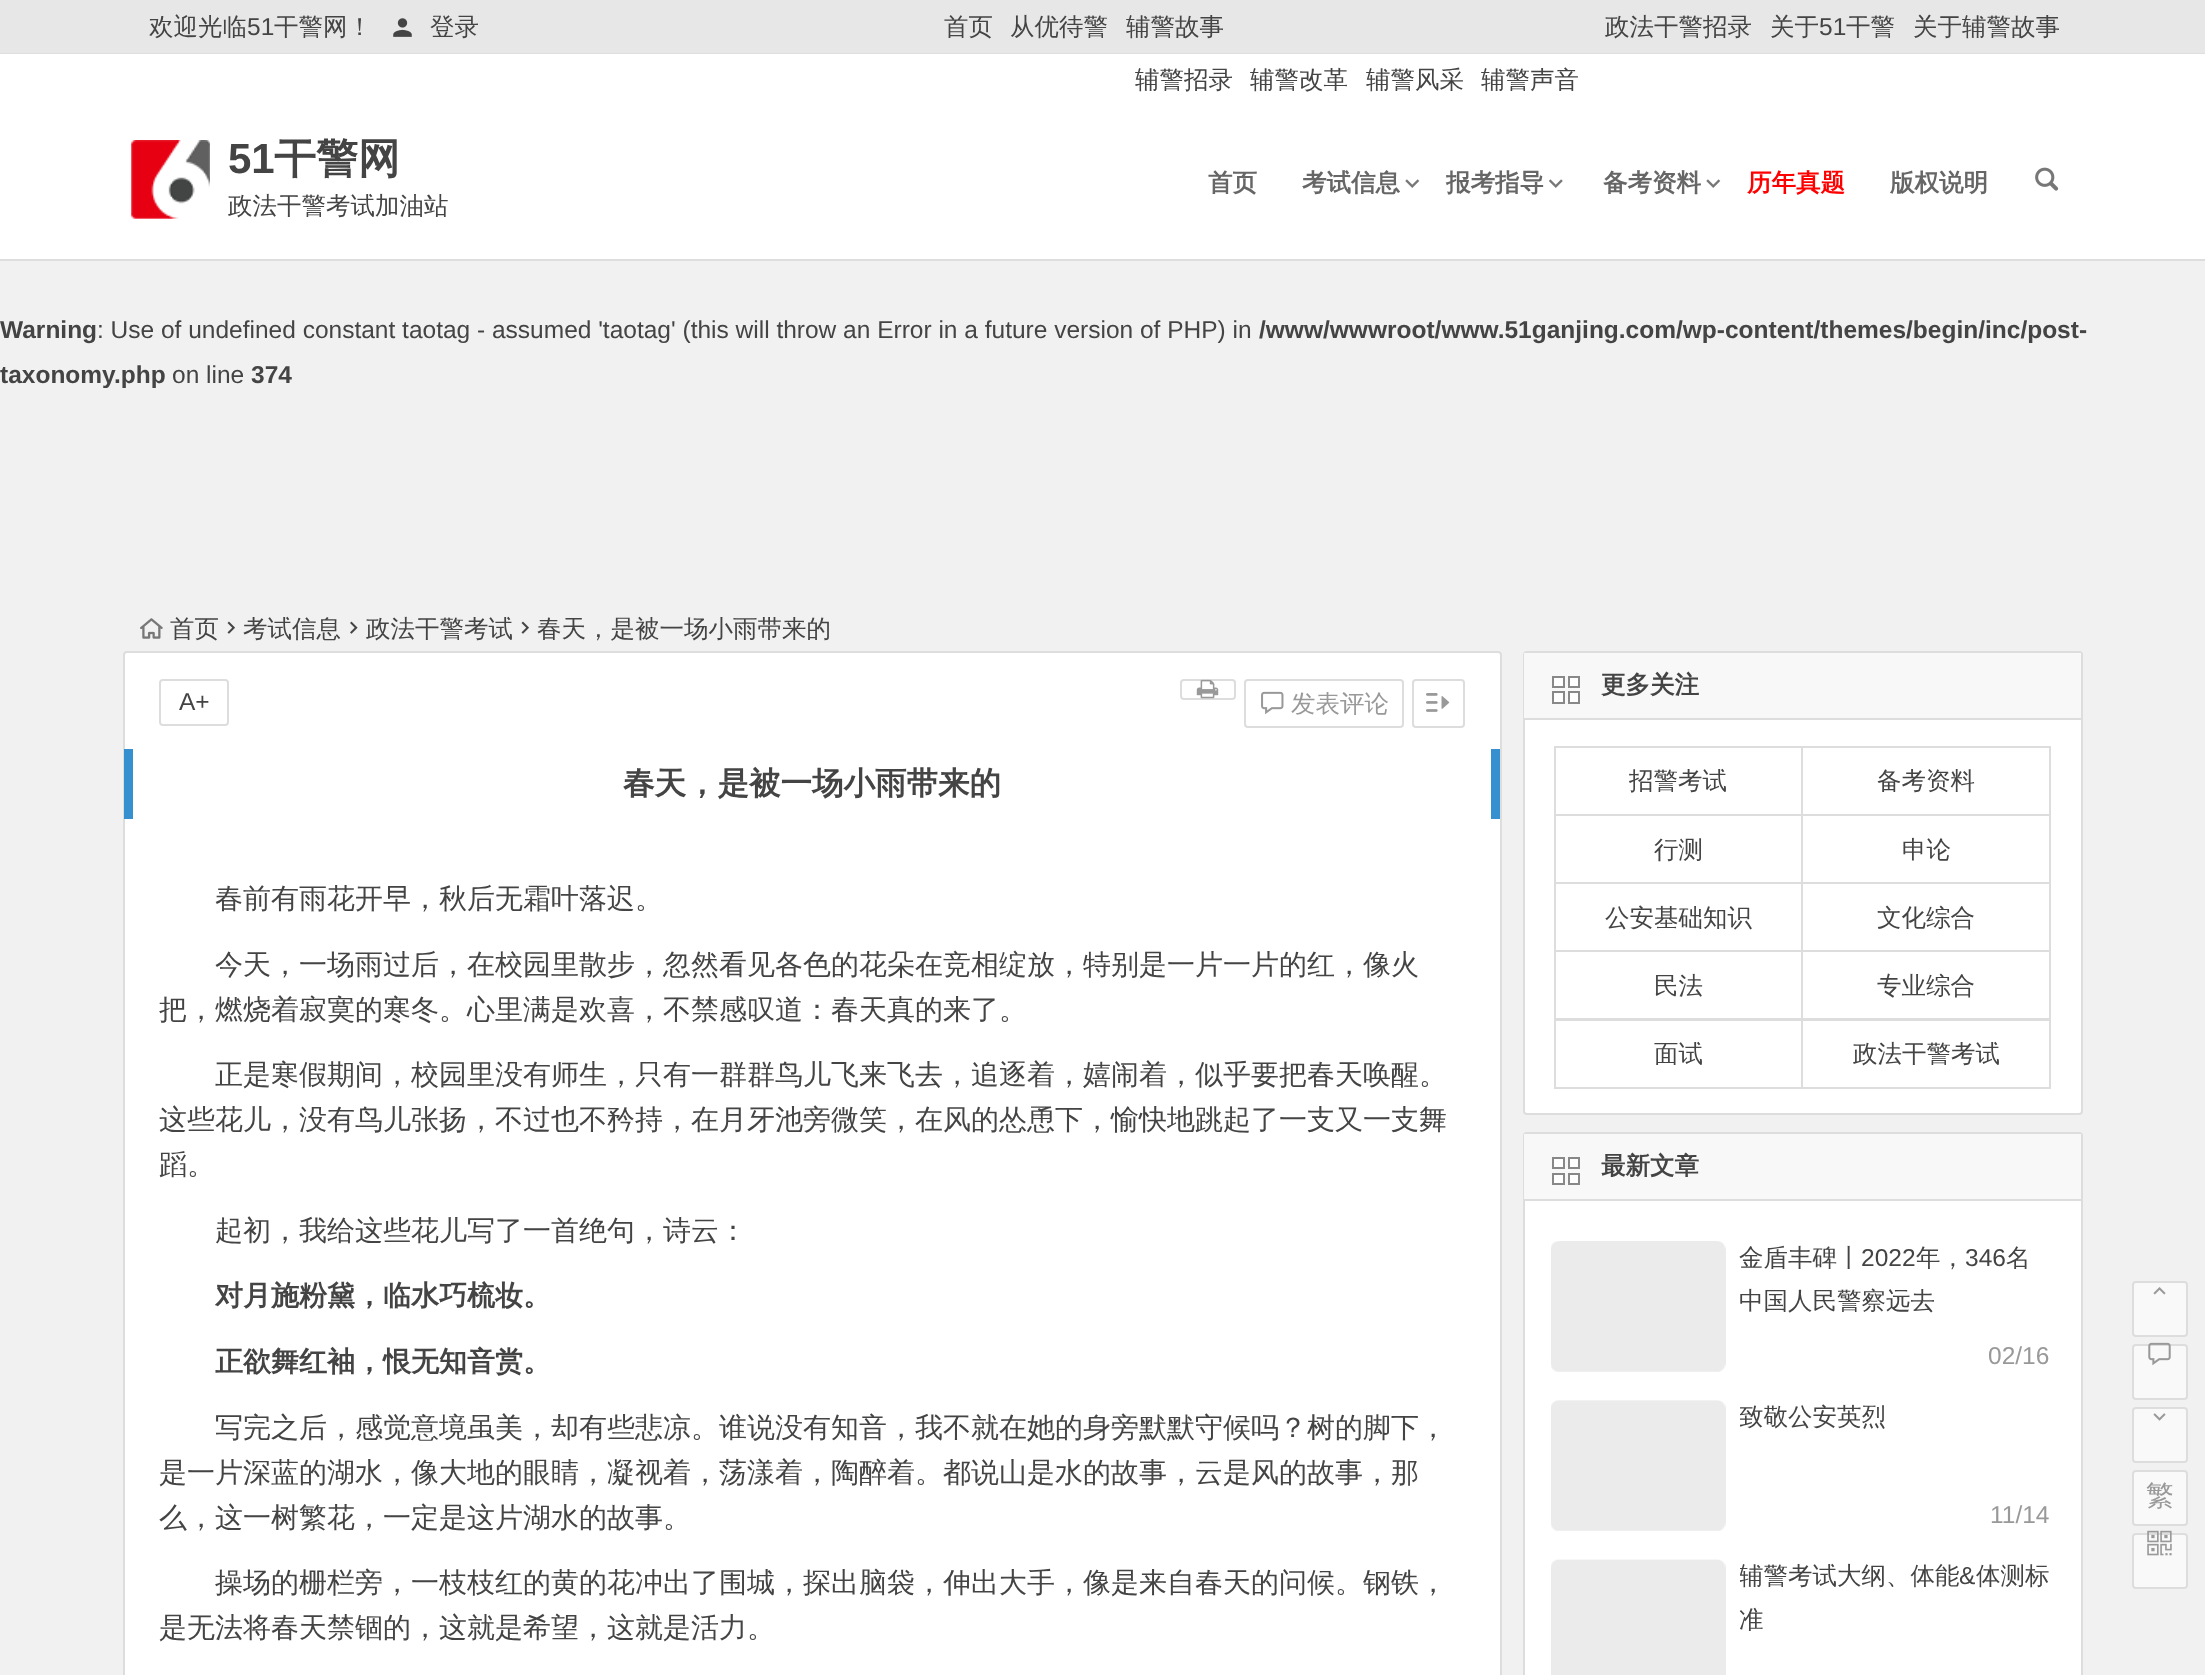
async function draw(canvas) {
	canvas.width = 2205;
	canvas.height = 1675;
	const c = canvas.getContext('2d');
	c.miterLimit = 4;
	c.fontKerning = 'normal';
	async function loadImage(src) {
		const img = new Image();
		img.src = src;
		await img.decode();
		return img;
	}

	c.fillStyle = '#f1f1f1';
	c.fillRect(0, 0, 2205, 1675);
	c.font = 'bold 24.5px Liberation Sans';
	c.fillStyle = '#444';
	c.fillText('Warning', 0, 338);
	c.fillStyle = '#e7e7e7';
	c.fillRect(0, 0, 2205, 53);
	c.fillStyle = '#dedede';
	c.fillRect(0, 53, 2205, 1);
	c.font = '500 24.5px WenQuanYi Zen Hei';
	c.fillStyle = '#444';
	c.fillText('欢迎光临', 149, 35);
	c.font = '24.5px Liberation Sans';
	c.fillText('51', 247, 35);
	c.font = '500 24.5px WenQuanYi Zen Hei';
	c.fillText('干警网！', 274, 35);
	c.drawImage(await loadImage('img1.png'), 393, 18, 19, 19);
	for (const [text, x, y] of [
		['登录', 430, 35],
		['首页', 944, 35],
		['从优待警', 1010, 35],
		['辅警故事', 1126, 35],
	]) {
		c.fillText(text, x, y);
	}
	c.fillStyle = '#fff';
	c.fillRect(0, 54, 2205, 205);
	c.fillStyle = '#444';
	for (const [text, x, y] of [
		['辅警招录', 1135, 88],
		['辅警改革', 1250, 88],
		['辅警风采', 1366, 88],
		['辅警声音', 1481, 88],
		['政法干警招录', 1605, 35],
		['关于', 1770, 35],
	]) {
		c.fillText(text, x, y);
	}
	c.font = '24.5px Liberation Sans';
	c.fillText('51', 1819, 35);
	c.font = '500 24.5px WenQuanYi Zen Hei';
	c.fillText('干警', 1846, 35);
	c.fillText('关于辅警故事', 1913, 35);
	c.fillStyle = '#ddd';
	c.fillRect(0, 259, 2205, 2);
	c.drawImage(await loadImage('img2.png'), 131, 140, 79, 79);
	c.font = 'bold 42px Liberation Sans';
	c.fillStyle = '#444';
	c.fillText('51', 228, 173);
	c.font = 'bold 42px WenQuanYi Zen Hei';
	c.fillText('干警网', 274, 173);
	c.font = '500 24.5px WenQuanYi Zen Hei';
	c.fillText('政法干警考试加油站', 228, 214);
	c.font = 'bold 24.5px WenQuanYi Zen Hei';
	c.fillStyle = '#666';
	c.fillText('首页', 1208, 191);
	c.fillText('考试信息', 1302, 191);
	c.drawImage(await loadImage('img3.png'), 1405, 179, 15, 9);
	c.fillText('报考指导', 1446, 191);
	c.drawImage(await loadImage('img4.png'), 1549, 179, 14, 9);
	c.fillText('备考资料', 1603, 191);
	c.drawImage(await loadImage('img3.png'), 1706, 179, 15, 9);
	c.fillStyle = '#f00';
	c.fillText('历年真题', 1747, 191);
	c.fillStyle = '#666';
	c.fillText('版权说明', 1890, 191);
	c.drawImage(await loadImage('img5.png'), 2035, 167, 24, 24);
	c.drawImage(await loadImage('img6.png'), 140, 618, 23, 21);
	c.font = '500 24.5px WenQuanYi Zen Hei';
	c.fillStyle = '#444';
	c.fillText('首页', 170, 637);
	c.drawImage(await loadImage('img7.png'), 227, 621, 8, 13);
	c.fillText('考试信息', 243, 637);
	c.drawImage(await loadImage('img8.png'), 350, 621, 8, 13);
	c.fillText('政法干警考试', 366, 637);
	c.drawImage(await loadImage('img7.png'), 521, 621, 8, 13);
	c.fillText('春天，是被一场小雨带来的', 537, 637);
	c.fillStyle = '#fff';
	c.beginPath();
	c.roundRect(124, 652, 1377, 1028, 3);
	c.fill();
	c.strokeStyle = '#ddd';
	c.lineWidth = 2;
	c.stroke();
	c.beginPath();
	c.roundRect(160, 680, 68, 45, 3);
	c.stroke();
	c.font = '24.5px Liberation Sans';
	c.fillStyle = '#444';
	c.fillText('A+', 179, 710);
	c.beginPath();
	c.roundRect(1181, 680, 54, 19, 3);
	c.stroke();
	c.drawImage(await loadImage('img9.png'), 1196, 679, 23, 20);
	c.beginPath();
	c.roundRect(1245, 680, 158, 47, 3);
	c.stroke();
	c.drawImage(await loadImage('img10.png'), 1261, 691, 23, 24);
	c.font = '500 24.5px WenQuanYi Zen Hei';
	c.fillStyle = '#999';
	c.fillText('发表评论', 1291, 712);
	c.beginPath();
	c.roundRect(1413, 680, 51, 47, 3);
	c.stroke();
	c.drawImage(await loadImage('img11.png'), 1426, 693, 24, 19);
	c.font = '500 28px WenQuanYi Zen Hei';
	c.fillStyle = '#444';
	for (const [text, x, y] of [
		['春前有雨花开早，秋后无霜叶落迟。', 215, 908],
		['今天，一场雨过后，在校园里散步，忽然看见各色的花朵在竞相绽放，特别是一片一片的红，像火', 215, 974],
		['把，燃烧着寂寞的寒冬。心里满是欢喜，不禁感叹道：春天真的来了。', 159, 1019],
		['正是寒假期间，校园里没有师生，只有一群群鸟儿飞来飞去，追逐着，嬉闹着，似乎要把春天唤醒。', 215, 1084],
		['这些花儿，没有鸟儿张扬，不过也不矜持，在月牙池旁微笑，在风的怂恿下，愉快地跳起了一支又一支舞', 159, 1129],
		['蹈。', 159, 1174],
		['起初，我给这些花儿写了一首绝句，诗云：', 215, 1240],
	]) {
		c.fillText(text, x, y);
	}
	c.font = 'bold 28px WenQuanYi Zen Hei';
	c.fillText('对月施粉黛，临水巧梳妆。', 215, 1305);
	c.fillText('正欲舞红袖，恨无知音赏。', 215, 1371);
	c.font = '500 28px WenQuanYi Zen Hei';
	for (const [text, x, y] of [
		['写完之后，感觉意境虽美，却有些悲凉。谁说没有知音，我不就在她的身旁默默守候吗？树的脚下，', 215, 1437],
		['是一片深蓝的湖水，像大地的眼睛，凝视着，荡漾着，陶醉着。都说山是水的故事，云是风的故事，那', 159, 1482],
		['么，这一树繁花，一定是这片湖水的故事。', 159, 1527],
		['操场的栅栏旁，一枝枝红的黄的花冲出了围城，探出脑袋，伸出大手，像是来自春天的问候。钢铁，', 215, 1592],
		['是无法将春天禁锢的，这就是希望，这就是活力。', 159, 1637],
	]) {
		c.fillText(text, x, y);
	}
	c.fillStyle = '#3690cf';
	c.fillRect(1491, 749, 9, 70);
	c.fillRect(124, 749, 9, 70);
	c.font = 'bold 31.5px WenQuanYi Zen Hei';
	c.fillStyle = '#444';
	c.fillText('春天，是被一场小雨带来的', 623, 794);
	c.fillStyle = '#fff';
	c.beginPath();
	c.roundRect(1524, 652, 558, 462, 3);
	c.fill();
	c.stroke();
	c.fillStyle = '#f8f8f8';
	c.fillRect(1524, 653, 557, 65);
	c.fillStyle = '#ddd';
	c.fillRect(1524, 718, 557, 2);
	c.fillStyle = '#fff';
	c.beginPath();
	c.rect(1553, 677, 11, 10);
	c.fill();
	c.strokeStyle = '#888';
	c.stroke();
	c.beginPath();
	c.rect(1569, 677, 10, 10);
	c.fill();
	c.stroke();
	c.beginPath();
	c.rect(1553, 692, 11, 11);
	c.fill();
	c.stroke();
	c.beginPath();
	c.rect(1569, 692, 10, 11);
	c.fill();
	c.stroke();
	c.font = 'bold 24.5px WenQuanYi Zen Hei';
	c.fillStyle = '#444';
	c.fillText('更多关注', 1601, 693);
	c.strokeStyle = '#ddd';
	c.strokeRect(1555, 747, 247, 68);
	c.font = '500 24.5px WenQuanYi Zen Hei';
	c.fillText('招警考试', 1629, 789);
	c.strokeRect(1802, 747, 248, 68);
	c.fillText('备考资料', 1877, 789);
	c.strokeRect(1555, 815, 247, 68);
	c.fillText('行测', 1654, 858);
	c.strokeRect(1802, 815, 248, 68);
	c.fillText('申论', 1902, 858);
	c.strokeRect(1555, 883, 247, 68);
	c.fillText('公安基础知识', 1605, 926);
	c.strokeRect(1802, 883, 248, 68);
	c.fillText('文化综合', 1877, 926);
	c.strokeRect(1555, 951, 247, 68);
	c.fillText('民法', 1654, 994);
	c.strokeRect(1802, 951, 248, 68);
	c.fillText('专业综合', 1877, 994);
	c.strokeRect(1555, 1020, 247, 68);
	c.fillText('面试', 1654, 1062);
	c.strokeRect(1802, 1020, 248, 68);
	c.fillText('政法干警考试', 1853, 1062);
	c.fillStyle = '#fff';
	c.beginPath();
	c.roundRect(1524, 1133, 558, 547, 3);
	c.fill();
	c.stroke();
	c.fillStyle = '#f8f8f8';
	c.fillRect(1524, 1134, 557, 65);
	c.fillStyle = '#ddd';
	c.fillRect(1524, 1199, 557, 2);
	c.fillStyle = '#fff';
	c.beginPath();
	c.rect(1553, 1158, 11, 10);
	c.fill();
	c.strokeStyle = '#888';
	c.stroke();
	c.beginPath();
	c.rect(1569, 1158, 10, 10);
	c.fill();
	c.stroke();
	c.beginPath();
	c.rect(1553, 1174, 11, 10);
	c.fill();
	c.stroke();
	c.beginPath();
	c.rect(1569, 1174, 10, 10);
	c.fill();
	c.stroke();
	c.font = 'bold 24.5px WenQuanYi Zen Hei';
	c.fillStyle = '#444';
	c.fillText('最新文章', 1601, 1174);
	c.drawImage(await loadImage('img12.png'), 1551, 1241, 175, 131);
	c.font = '500 24.5px WenQuanYi Zen Hei';
	c.fillText('金盾丰碑丨', 1739, 1266);
	c.font = '24.5px Liberation Sans';
	c.fillText('2022', 1861, 1266);
	c.font = '500 24.5px WenQuanYi Zen Hei';
	c.fillText('年，', 1916, 1266);
	c.font = '24.5px Liberation Sans';
	c.fillText('346', 1965, 1266);
	c.font = '500 24.5px WenQuanYi Zen Hei';
	c.fillText('名', 2006, 1266);
	c.fillText('中国人民警察远去', 1739, 1309);
	c.font = '24.5px Liberation Sans';
	c.fillStyle = '#999';
	c.fillText('02/16', 1988, 1364);
	c.drawImage(await loadImage('img13.png'), 1551, 1400, 175, 131);
	c.save();
	c.beginPath();
	c.rect(1740, 1386, 309, 103);
	c.clip();
	c.font = '500 24.5px WenQuanYi Zen Hei';
	c.fillStyle = '#444';
	c.fillText('致敬公安英烈', 1739, 1425);
	c.restore();
	c.fillText('11/14', 1990, 1523);
	c.drawImage(await loadImage('img14.png'), 1551, 1559, 175, 116);
	c.save();
	c.beginPath();
	c.rect(1740, 1545, 309, 104);
	c.clip();
	c.font = '500 24.5px WenQuanYi Zen Hei';
	c.fillStyle = '#444';
	c.fillText('辅警考试大纲、体能', 1739, 1584);
	c.restore();
	c.fillStyle = '#444';
	c.fillText('&', 1959, 1584);
	c.font = '500 24.5px WenQuanYi Zen Hei';
	c.fillText('体测标', 1976, 1584);
	c.fillText('准', 1739, 1628);
	c.fillStyle = '#ffffff99';
	c.beginPath();
	c.roundRect(2133, 1282, 54, 54, 3);
	c.fill();
	c.strokeStyle = '#ddd';
	c.stroke();
	c.drawImage(await loadImage('img15.png'), 2153, 1287, 13, 8);
	c.beginPath();
	c.roundRect(2133, 1345, 54, 54, 3);
	c.fill();
	c.stroke();
	c.drawImage(await loadImage('img16.png'), 2148, 1342, 23, 24);
	c.beginPath();
	c.roundRect(2133, 1408, 54, 54, 3);
	c.fill();
	c.stroke();
	c.drawImage(await loadImage('img17.png'), 2153, 1413, 13, 8);
	c.beginPath();
	c.roundRect(2133, 1471, 54, 54, 3);
	c.fill();
	c.stroke();
	c.font = '500 28px WenQuanYi Zen Hei';
	c.fillStyle = '#999';
	c.fillText('繁', 2146, 1505);
	c.fillStyle = '#ffffff99';
	c.beginPath();
	c.roundRect(2133, 1534, 54, 54, 3);
	c.fill();
	c.stroke();
	c.drawImage(await loadImage('img18.png'), 2147, 1530, 25, 26);
	c.font = '24.5px Liberation Sans';
	c.fillStyle = '#444';
	c.fillText(': Use of undefined constant taotag - assumed \'taotag\' (this will throw an Error in a future version of PHP) in', 97, 338);
	c.font = 'bold 24.5px Liberation Sans';
	c.fillText('/www/wwwroot/www.51ganjing.com/wp-content/themes/begin/inc/post-', 1259, 338);
	c.fillText('taxonomy.php', 0, 383);
	c.font = '24.5px Liberation Sans';
	c.fillText('on line', 172, 383);
	c.font = 'bold 24.5px Liberation Sans';
	c.fillText('374', 251, 383);
}

draw(document.querySelector('canvas'));
